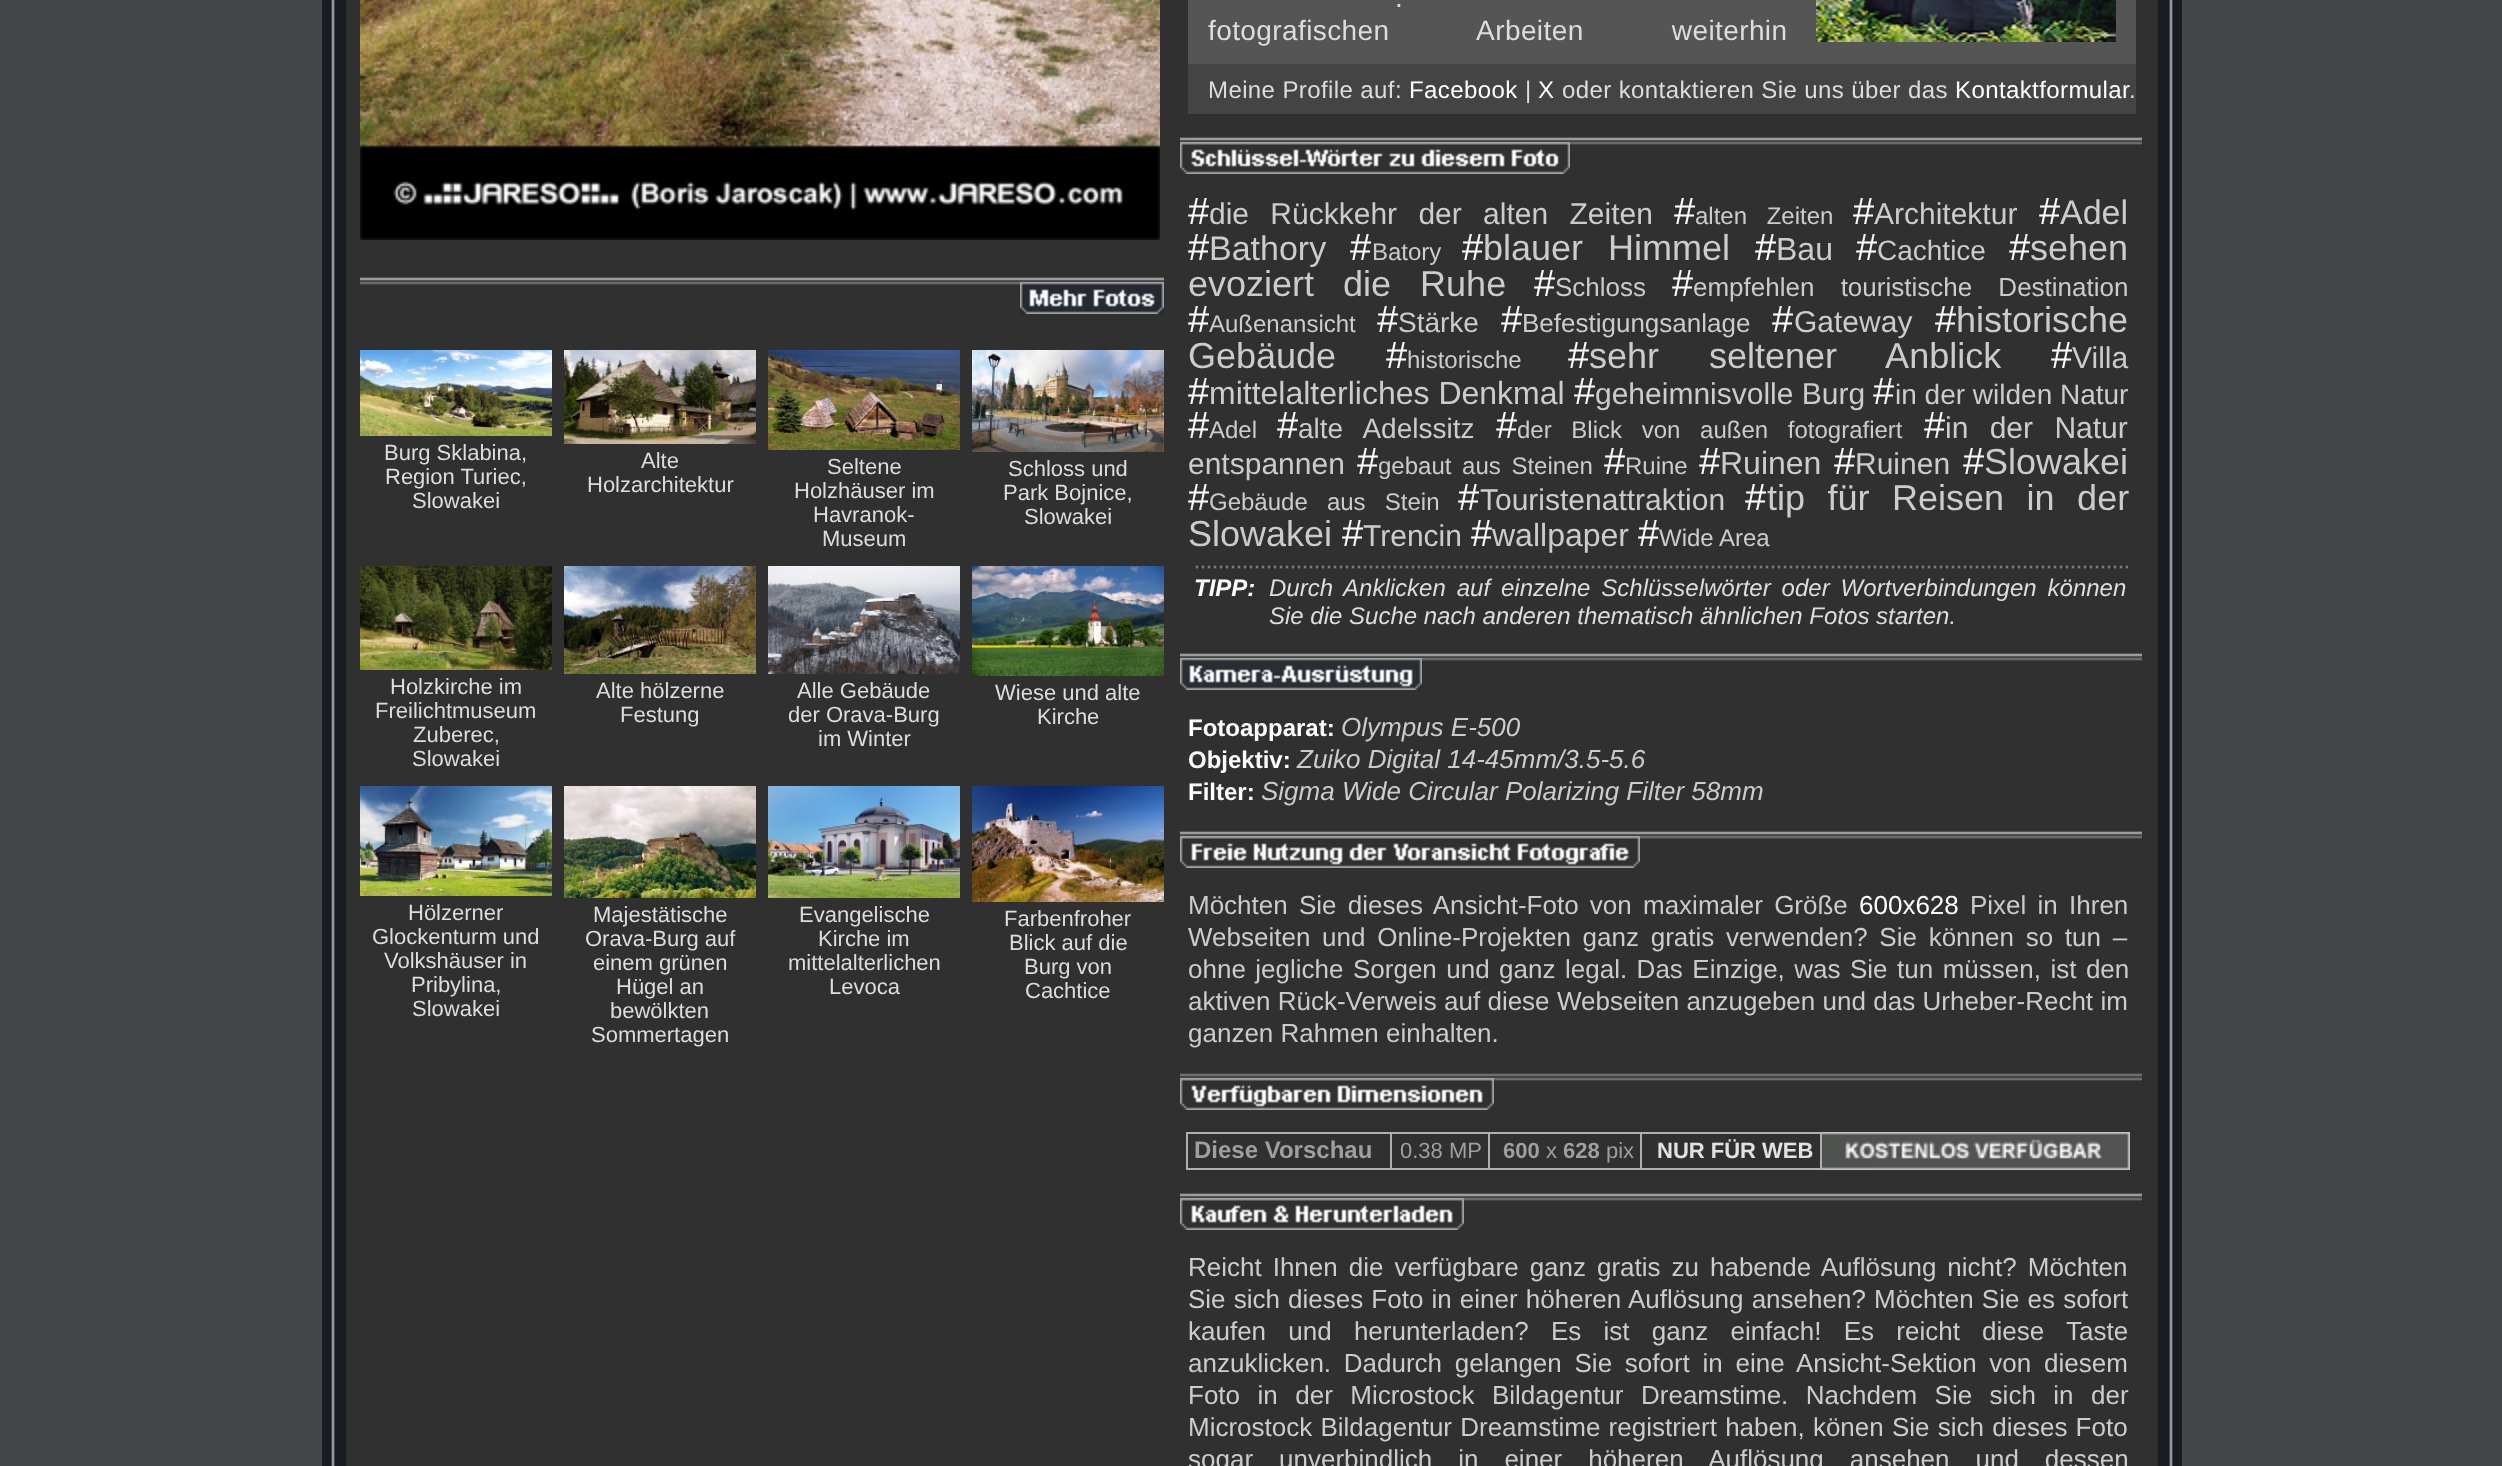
async function draw(canvas) {
	canvas.width = 2502;
	canvas.height = 1466;
	const c = canvas.getContext('2d');
	c.miterLimit = 4;
	c.fontKerning = 'normal';
	async function loadImage(src) {
		const img = new Image();
		img.src = src;
		await img.decode();
		return img;
	}

	c.fillStyle = '#434548';
	c.fillRect(0, 0, 2502, 1466);
	c.fillStyle = '#303030';
	c.fillRect(346, 0, 1812, 1466);
	c.drawImage(await loadImage('img1.png'), 322, 0, 24, 1466);
	c.drawImage(await loadImage('img2.png'), 360, 0, 800, 240);
	c.drawImage(await loadImage('img3.png'), 360, 277, 804, 8);
	c.drawImage(await loadImage('img4.png'), 1020, 282, 144, 32);
	c.drawImage(await loadImage('img5.png'), 360, 350, 192, 86);
	c.font = '22px Liberation Sans';
	c.fillStyle = '#ddd';
	for (const [text, x, y] of [
		['Burg Sklabina,', 384, 460],
		['Region Turiec,', 385, 484],
		['Slowakei', 412, 508],
	]) {
		c.fillText(text, x, y);
	}
	c.drawImage(await loadImage('img6.png'), 564, 350, 192, 94);
	c.fillText('Alte', 641, 468);
	c.fillText('Holzarchitektur', 587, 492);
	c.drawImage(await loadImage('img7.png'), 768, 350, 192, 100);
	for (const [text, x, y] of [
		['Seltene', 827, 474],
		['Holzhäuser im', 794, 498],
		['Havranok-', 813, 522],
		['Museum', 822, 546],
	]) {
		c.fillText(text, x, y);
	}
	c.drawImage(await loadImage('img8.png'), 972, 350, 192, 102);
	for (const [text, x, y] of [
		['Schloss und', 1008, 476],
		['Park Bojnice,', 1003, 500],
		['Slowakei', 1024, 524],
	]) {
		c.fillText(text, x, y);
	}
	c.drawImage(await loadImage('img9.png'), 360, 566, 192, 104);
	for (const [text, x, y] of [
		['Holzkirche im', 390, 694],
		['Freilichtmuseum', 375, 718],
		['Zuberec,', 413, 742],
		['Slowakei', 412, 766],
	]) {
		c.fillText(text, x, y);
	}
	c.drawImage(await loadImage('img10.png'), 564, 566, 192, 108);
	c.fillText('Alte hölzerne', 596, 698);
	c.fillText('Festung', 620, 722);
	c.drawImage(await loadImage('img11.png'), 768, 566, 192, 108);
	for (const [text, x, y] of [
		['Alle Gebäude', 797, 698],
		['der Orava-Burg', 788, 722],
		['im Winter', 818, 746],
	]) {
		c.fillText(text, x, y);
	}
	c.drawImage(await loadImage('img12.png'), 972, 566, 192, 110);
	c.fillText('Wiese und alte', 995, 700);
	c.fillText('Kirche', 1037, 724);
	c.drawImage(await loadImage('img13.png'), 360, 786, 192, 110);
	for (const [text, x, y] of [
		['Hölzerner', 408, 920],
		['Glockenturm und', 372, 944],
		['Volkshäuser in', 384, 968],
		['Pribylina,', 411, 992],
		['Slowakei', 412, 1016],
	]) {
		c.fillText(text, x, y);
	}
	c.drawImage(await loadImage('img14.png'), 564, 786, 192, 112);
	for (const [text, x, y] of [
		['Majestätische', 593, 922],
		['Orava-Burg auf', 585, 946],
		['einem grünen', 593, 970],
		['Hügel an', 616, 994],
		['bewölkten', 610, 1018],
		['Sommertagen', 591, 1042],
	]) {
		c.fillText(text, x, y);
	}
	c.drawImage(await loadImage('img15.png'), 768, 786, 192, 112);
	for (const [text, x, y] of [
		['Evangelische', 799, 922],
		['Kirche im', 818, 946],
		['mittelalterlichen', 788, 970],
		['Levoca', 829, 994],
	]) {
		c.fillText(text, x, y);
	}
	c.drawImage(await loadImage('img16.png'), 972, 786, 192, 116);
	for (const [text, x, y] of [
		['Farbenfroher', 1004, 926],
		['Blick auf die', 1009, 950],
		['Burg von', 1024, 974],
		['Cachtice', 1025, 998],
	]) {
		c.fillText(text, x, y);
	}
	c.fillStyle = '#555';
	c.fillRect(1188, 0, 948, 64);
	c.letterSpacing = '0.4px';
	c.font = '28px Liberation Sans';
	c.fillStyle = '#ddd';
	c.fillText('.', 1395, 7);
	c.wordSpacing = '80px';
	c.fillText('fotografischen Arbeiten weiterhin', 1208, 40);
	c.drawImage(await loadImage('img17.png'), 1816, 0, 300, 42);
	c.fillStyle = '#444';
	c.fillRect(1188, 64, 948, 50);
	c.wordSpacing = '0px';
	c.font = '24px Liberation Sans';
	c.fillStyle = '#ddd';
	c.fillText('Meine Profile auf:', 1208, 98);
	c.fillStyle = '#fff';
	c.fillText('Facebook', 1409, 98);
	c.fillStyle = '#ddd';
	c.fillText('|', 1525, 98);
	c.fillStyle = '#fff';
	c.fillText('X', 1538, 98);
	c.fillStyle = '#ddd';
	c.fillText('oder kontaktieren Sie uns über das', 1562, 98);
	c.fillStyle = '#fff';
	c.fillText('Kontaktformular', 1955, 98);
	c.fillStyle = '#ddd';
	c.fillText('.', 2129, 98);
	c.drawImage(await loadImage('img18.png'), 1180, 137, 962, 8);
	c.drawImage(await loadImage('img19.png'), 1180, 142, 390, 32);
	c.letterSpacing = '0px';
	c.font = '38px Liberation Sans';
	c.fillStyle = '#fff';
	c.fillText('#', 1188, 224);
	c.wordSpacing = '13px';
	c.font = '30px Liberation Sans';
	c.fillStyle = '#ccc';
	c.fillText('die Rückkehr der alten Zeiten', 1209, 224);
	c.wordSpacing = '0px';
	c.font = '38px Liberation Sans';
	c.fillStyle = '#fff';
	c.fillText('#', 1674, 224);
	c.wordSpacing = '13px';
	c.font = '24px Liberation Sans';
	c.fillStyle = '#ccc';
	c.fillText('alten Zeiten', 1695, 224);
	c.wordSpacing = '0px';
	c.font = '38px Liberation Sans';
	c.fillStyle = '#fff';
	c.fillText('#', 1853, 224);
	c.font = '30px Liberation Sans';
	c.fillStyle = '#ccc';
	c.fillText('Architektur', 1874, 224);
	c.font = '38px Liberation Sans';
	c.fillStyle = '#fff';
	c.fillText('#', 2039, 224);
	c.font = '34px Liberation Sans';
	c.fillStyle = '#ccc';
	c.fillText('Adel', 2060, 224);
	c.font = '38px Liberation Sans';
	c.fillStyle = '#fff';
	c.fillText('#', 1188, 260);
	c.font = '34px Liberation Sans';
	c.fillStyle = '#ccc';
	c.fillText('Bathory', 1209, 260);
	c.font = '38px Liberation Sans';
	c.fillStyle = '#fff';
	c.fillText('#', 1350, 260);
	c.font = '24px Liberation Sans';
	c.fillStyle = '#ccc';
	c.fillText('Batory', 1372, 260);
	c.font = '38px Liberation Sans';
	c.fillStyle = '#fff';
	c.fillText('#', 1462, 260);
	c.wordSpacing = '15px';
	c.font = '36px Liberation Sans';
	c.fillStyle = '#ccc';
	c.fillText('blauer Himmel', 1483, 260);
	c.wordSpacing = '0px';
	c.font = '38px Liberation Sans';
	c.fillStyle = '#fff';
	c.fillText('#', 1755, 260);
	c.font = '32px Liberation Sans';
	c.fillStyle = '#ccc';
	c.fillText('Bau', 1776, 260);
	c.font = '38px Liberation Sans';
	c.fillStyle = '#fff';
	c.fillText('#', 1856, 260);
	c.font = '28px Liberation Sans';
	c.fillStyle = '#ccc';
	c.fillText('Cachtice', 1877, 260);
	c.font = '38px Liberation Sans';
	c.fillStyle = '#fff';
	c.fillText('#', 2009, 260);
	c.font = '36px Liberation Sans';
	c.fillStyle = '#ccc';
	c.fillText('sehen', 2030, 260);
	c.wordSpacing = '19px';
	c.fillText('evoziert die Ruhe', 1188, 296);
	c.wordSpacing = '0px';
	c.font = '38px Liberation Sans';
	c.fillStyle = '#fff';
	c.fillText('#', 1534, 296);
	c.font = '26px Liberation Sans';
	c.fillStyle = '#ccc';
	c.fillText('Schloss', 1555, 296);
	c.font = '38px Liberation Sans';
	c.fillStyle = '#fff';
	c.fillText('#', 1672, 296);
	c.wordSpacing = '19px';
	c.font = '26px Liberation Sans';
	c.fillStyle = '#ccc';
	c.fillText('empfehlen touristische Destination', 1693, 296);
	c.wordSpacing = '0px';
	c.font = '38px Liberation Sans';
	c.fillStyle = '#fff';
	c.fillText('#', 1188, 332);
	c.font = '24px Liberation Sans';
	c.fillStyle = '#ccc';
	c.fillText('Außenansicht', 1209, 332);
	c.font = '38px Liberation Sans';
	c.fillStyle = '#fff';
	c.fillText('#', 1377, 332);
	c.font = '28px Liberation Sans';
	c.fillStyle = '#ccc';
	c.fillText('Stärke', 1398, 332);
	c.font = '38px Liberation Sans';
	c.fillStyle = '#fff';
	c.fillText('#', 1501, 332);
	c.font = '26px Liberation Sans';
	c.fillStyle = '#ccc';
	c.fillText('Befestigungsanlage', 1522, 332);
	c.font = '38px Liberation Sans';
	c.fillStyle = '#fff';
	c.fillText('#', 1772, 332);
	c.font = '30px Liberation Sans';
	c.fillStyle = '#ccc';
	c.fillText('Gateway', 1794, 332);
	c.font = '38px Liberation Sans';
	c.fillStyle = '#fff';
	c.fillText('#', 1935, 332);
	c.font = '36px Liberation Sans';
	c.fillStyle = '#ccc';
	c.fillText('historische', 1956, 332);
	c.fillText('Gebäude', 1188, 368);
	c.font = '38px Liberation Sans';
	c.fillStyle = '#fff';
	c.fillText('#', 1386, 368);
	c.font = '24px Liberation Sans';
	c.fillStyle = '#ccc';
	c.fillText('historische', 1407, 368);
	c.font = '38px Liberation Sans';
	c.fillStyle = '#fff';
	c.fillText('#', 1568, 368);
	c.wordSpacing = '40px';
	c.font = '36px Liberation Sans';
	c.fillStyle = '#ccc';
	c.fillText('sehr seltener Anblick', 1589, 368);
	c.wordSpacing = '0px';
	c.font = '38px Liberation Sans';
	c.fillStyle = '#fff';
	c.fillText('#', 2051, 368);
	c.font = '30px Liberation Sans';
	c.fillStyle = '#ccc';
	c.fillText('Villa', 2072, 368);
	c.font = '38px Liberation Sans';
	c.fillStyle = '#fff';
	c.fillText('#', 1188, 404);
	c.font = '32px Liberation Sans';
	c.fillStyle = '#ccc';
	c.fillText('mittelalterliches Denkmal', 1209, 404);
	c.font = '38px Liberation Sans';
	c.fillStyle = '#fff';
	c.fillText('#', 1574, 404);
	c.font = '30px Liberation Sans';
	c.fillStyle = '#ccc';
	c.fillText('geheimnisvolle Burg', 1595, 404);
	c.font = '38px Liberation Sans';
	c.fillStyle = '#fff';
	c.fillText('#', 1873, 404);
	c.font = '28px Liberation Sans';
	c.fillStyle = '#ccc';
	c.fillText('in der wilden Natur', 1895, 404);
	c.font = '38px Liberation Sans';
	c.fillStyle = '#fff';
	c.fillText('#', 1188, 438);
	c.font = '24px Liberation Sans';
	c.fillStyle = '#ccc';
	c.fillText('Adel', 1209, 438);
	c.font = '38px Liberation Sans';
	c.fillStyle = '#fff';
	c.fillText('#', 1277, 438);
	c.wordSpacing = '13px';
	c.font = '28px Liberation Sans';
	c.fillStyle = '#ccc';
	c.fillText('alte Adelssitz', 1298, 438);
	c.wordSpacing = '0px';
	c.font = '38px Liberation Sans';
	c.fillStyle = '#fff';
	c.fillText('#', 1496, 438);
	c.wordSpacing = '13px';
	c.font = '24px Liberation Sans';
	c.fillStyle = '#ccc';
	c.fillText('der Blick von außen fotografiert', 1517, 438);
	c.wordSpacing = '0px';
	c.font = '38px Liberation Sans';
	c.fillStyle = '#fff';
	c.fillText('#', 1924, 438);
	c.wordSpacing = '13px';
	c.font = '30px Liberation Sans';
	c.fillStyle = '#ccc';
	c.fillText('in der Natur', 1945, 438);
	c.wordSpacing = '0px';
	c.fillText('entspannen', 1188, 474);
	c.font = '38px Liberation Sans';
	c.fillStyle = '#fff';
	c.fillText('#', 1357, 474);
	c.wordSpacing = '4px';
	c.font = '24px Liberation Sans';
	c.fillStyle = '#ccc';
	c.fillText('gebaut aus Steinen', 1378, 474);
	c.wordSpacing = '0px';
	c.font = '38px Liberation Sans';
	c.fillStyle = '#fff';
	c.fillText('#', 1604, 474);
	c.font = '24px Liberation Sans';
	c.fillStyle = '#ccc';
	c.fillText('Ruine', 1625, 474);
	c.font = '38px Liberation Sans';
	c.fillStyle = '#fff';
	c.fillText('#', 1699, 474);
	c.font = '32px Liberation Sans';
	c.fillStyle = '#ccc';
	c.fillText('Ruinen', 1720, 474);
	c.font = '38px Liberation Sans';
	c.fillStyle = '#fff';
	c.fillText('#', 1834, 474);
	c.font = '30px Liberation Sans';
	c.fillStyle = '#ccc';
	c.fillText('Ruinen', 1855, 474);
	c.font = '38px Liberation Sans';
	c.fillStyle = '#fff';
	c.fillText('#', 1963, 474);
	c.font = '36px Liberation Sans';
	c.fillStyle = '#ccc';
	c.fillText('Slowakei', 1984, 474);
	c.font = '38px Liberation Sans';
	c.fillStyle = '#fff';
	c.fillText('#', 1188, 510);
	c.wordSpacing = '12.5px';
	c.font = '24px Liberation Sans';
	c.fillStyle = '#ccc';
	c.fillText('Gebäude aus Stein', 1209, 510);
	c.wordSpacing = '0px';
	c.font = '38px Liberation Sans';
	c.fillStyle = '#fff';
	c.fillText('#', 1458, 510);
	c.font = '30px Liberation Sans';
	c.fillStyle = '#ccc';
	c.fillText('Touristenattraktion', 1480, 510);
	c.font = '38px Liberation Sans';
	c.fillStyle = '#fff';
	c.fillText('#', 1745, 510);
	c.wordSpacing = '12.5px';
	c.font = '36px Liberation Sans';
	c.fillStyle = '#ccc';
	c.fillText('tip für Reisen in der', 1767, 510);
	c.wordSpacing = '0px';
	c.fillText('Slowakei', 1188, 546);
	c.font = '38px Liberation Sans';
	c.fillStyle = '#fff';
	c.fillText('#', 1342, 546);
	c.font = '30px Liberation Sans';
	c.fillStyle = '#ccc';
	c.fillText('Trencin', 1363, 546);
	c.font = '38px Liberation Sans';
	c.fillStyle = '#fff';
	c.fillText('#', 1471, 546);
	c.font = '32px Liberation Sans';
	c.fillStyle = '#ccc';
	c.fillText('wallpaper', 1492, 546);
	c.font = '38px Liberation Sans';
	c.fillStyle = '#fff';
	c.fillText('#', 1638, 546);
	c.font = '24px Liberation Sans';
	c.fillStyle = '#ccc';
	c.fillText('Wide Area', 1659, 546);
	c.drawImage(await loadImage('img20.png'), 1194, 565, 934, 4);
	c.font = 'italic bold 24px Liberation Sans';
	c.fillStyle = '#fff';
	c.fillText('TIPP:', 1194, 596);
	c.wordSpacing = '4.25px';
	c.font = 'italic 24px Liberation Sans';
	c.fillStyle = '#ddd';
	c.fillText('Durch Anklicken auf einzelne Schlüsselwörter oder Wortverbindungen können', 1269, 596);
	c.wordSpacing = '0px';
	c.fillText('Sie die Suche nach anderen thematisch ähnlichen Fotos starten.', 1269, 624);
	c.drawImage(await loadImage('img18.png'), 1180, 653, 962, 8);
	c.drawImage(await loadImage('img21.png'), 1180, 658, 242, 32);
	c.font = 'bold 24px Liberation Sans';
	c.fillStyle = '#fff';
	c.fillText('Fotoapparat:', 1188, 736);
	c.font = 'italic 26px Liberation Sans';
	c.fillStyle = '#ccc';
	c.fillText('Olympus E-500', 1341, 736);
	c.font = 'bold 24px Liberation Sans';
	c.fillStyle = '#fff';
	c.fillText('Objektiv:', 1188, 768);
	c.font = 'italic 26px Liberation Sans';
	c.fillStyle = '#ccc';
	c.fillText('Zuiko Digital 14-45mm/3.5-5.6', 1297, 768);
	c.font = 'bold 24px Liberation Sans';
	c.fillStyle = '#fff';
	c.fillText('Filter:', 1188, 800);
	c.font = 'italic 26px Liberation Sans';
	c.fillStyle = '#ccc';
	c.fillText('Sigma Wide Circular Polarizing Filter 58mm', 1261, 800);
	c.drawImage(await loadImage('img18.png'), 1180, 831, 962, 8);
	c.drawImage(await loadImage('img22.png'), 1180, 836, 460, 32);
	c.wordSpacing = '4px';
	c.font = '26px Liberation Sans';
	c.fillText('Möchten Sie dieses Ansicht-Foto von maximaler Größe', 1188, 914);
	c.wordSpacing = '0px';
	c.fillStyle = '#fff';
	c.fillText('600x628', 1859, 914);
	c.wordSpacing = '4px';
	c.fillStyle = '#ccc';
	c.fillText('Pixel in Ihren', 1970, 914);
	c.wordSpacing = '4.5px';
	c.fillText('Webseiten und Online-Projekten ganz gratis verwenden? Sie können so tun –', 1188, 946);
	c.wordSpacing = '2.25px';
	c.fillText('ohne jegliche Sorgen und ganz legal. Das Einzige, was Sie tun müssen, ist den', 1188, 978);
	c.wordSpacing = '0.1px';
	c.fillText('aktiven Rück-Verweis auf diese Webseiten anzugeben und das Urheber-Recht im', 1188, 1010);
	c.wordSpacing = '0px';
	c.fillText('ganzen Rahmen einhalten.', 1188, 1042);
	c.drawImage(await loadImage('img23.png'), 1180, 1073, 962, 8);
	c.drawImage(await loadImage('img24.png'), 1180, 1078, 314, 32);
	for (const [x, y, w, h, color] of [
		[1186, 1132, 638, 2, '#afafaf'],
		[1186, 1168, 638, 2, '#afafaf'],
		[1186, 1132, 2, 38, '#afafaf'],
	]) {
		c.fillStyle = color;
		c.fillRect(x, y, w, h);
	}
	c.font = 'bold 24px Liberation Sans';
	c.fillStyle = '#a09f9f';
	c.fillText('Diese Vorschau', 1194, 1158);
	c.fillStyle = '#afafaf';
	c.fillRect(1390, 1132, 2, 38);
	c.font = '22px Liberation Sans';
	c.fillStyle = '#a09f9f';
	c.fillText('0.38 MP', 1400, 1158);
	c.fillStyle = '#afafaf';
	c.fillRect(1488, 1132, 2, 38);
	c.font = 'bold 22px Liberation Sans';
	c.fillStyle = '#a09f9f';
	c.fillText('600', 1503, 1158);
	c.font = '22px Liberation Sans';
	c.fillText('x', 1546, 1158);
	c.font = 'bold 22px Liberation Sans';
	c.fillText('628', 1563, 1158);
	c.font = '22px Liberation Sans';
	c.fillText('pix', 1606, 1158);
	c.fillStyle = '#afafaf';
	c.fillRect(1640, 1132, 2, 38);
	c.font = 'bold 22px Liberation Sans';
	c.fillStyle = '#e1e2e3';
	c.fillText('NUR FÜR WEB', 1657, 1158);
	c.fillStyle = '#afafaf';
	c.fillRect(1820, 1132, 2, 38);
	c.drawImage(await loadImage('img25.png'), 1822, 1132, 308, 38);
	c.drawImage(await loadImage('img18.png'), 1180, 1193, 962, 8);
	c.drawImage(await loadImage('img26.png'), 1180, 1198, 284, 32);
	c.wordSpacing = '3.75px';
	c.font = '26px Liberation Sans';
	c.fillStyle = '#ccc';
	c.fillText('Reicht Ihnen die verfügbare ganz gratis zu habende Auflösung nicht? Möchten', 1188, 1276);
	c.wordSpacing = '0.9px';
	c.fillText('Sie sich dieses Foto in einer höheren Auflösung ansehen? Möchten Sie es sofort', 1188, 1308);
	c.wordSpacing = '15px';
	c.fillText('kaufen und herunterladen? Es ist ganz einfach! Es reicht diese Taste', 1188, 1340);
	c.wordSpacing = '5.5px';
	c.fillText('anzuklicken. Dadurch gelangen Sie sofort in eine Ansicht-Sektion von diesem', 1188, 1372);
	c.wordSpacing = '10.25px';
	c.fillText('Foto in der Microstock Bildagentur Dreamstime. Nachdem Sie sich in der', 1188, 1404);
	c.wordSpacing = '1px';
	c.fillText('Microstock Bildagentur Dreamstime registriert haben, könen Sie sich dieses Foto', 1188, 1436);
	c.wordSpacing = '18.75px';
	c.fillText('sogar unverbindlich in einer höheren Auflösung ansehen und dessen', 1188, 1468);
	c.drawImage(await loadImage('img27.png'), 2158, 0, 24, 1466);
}

draw(document.querySelector('canvas'));
